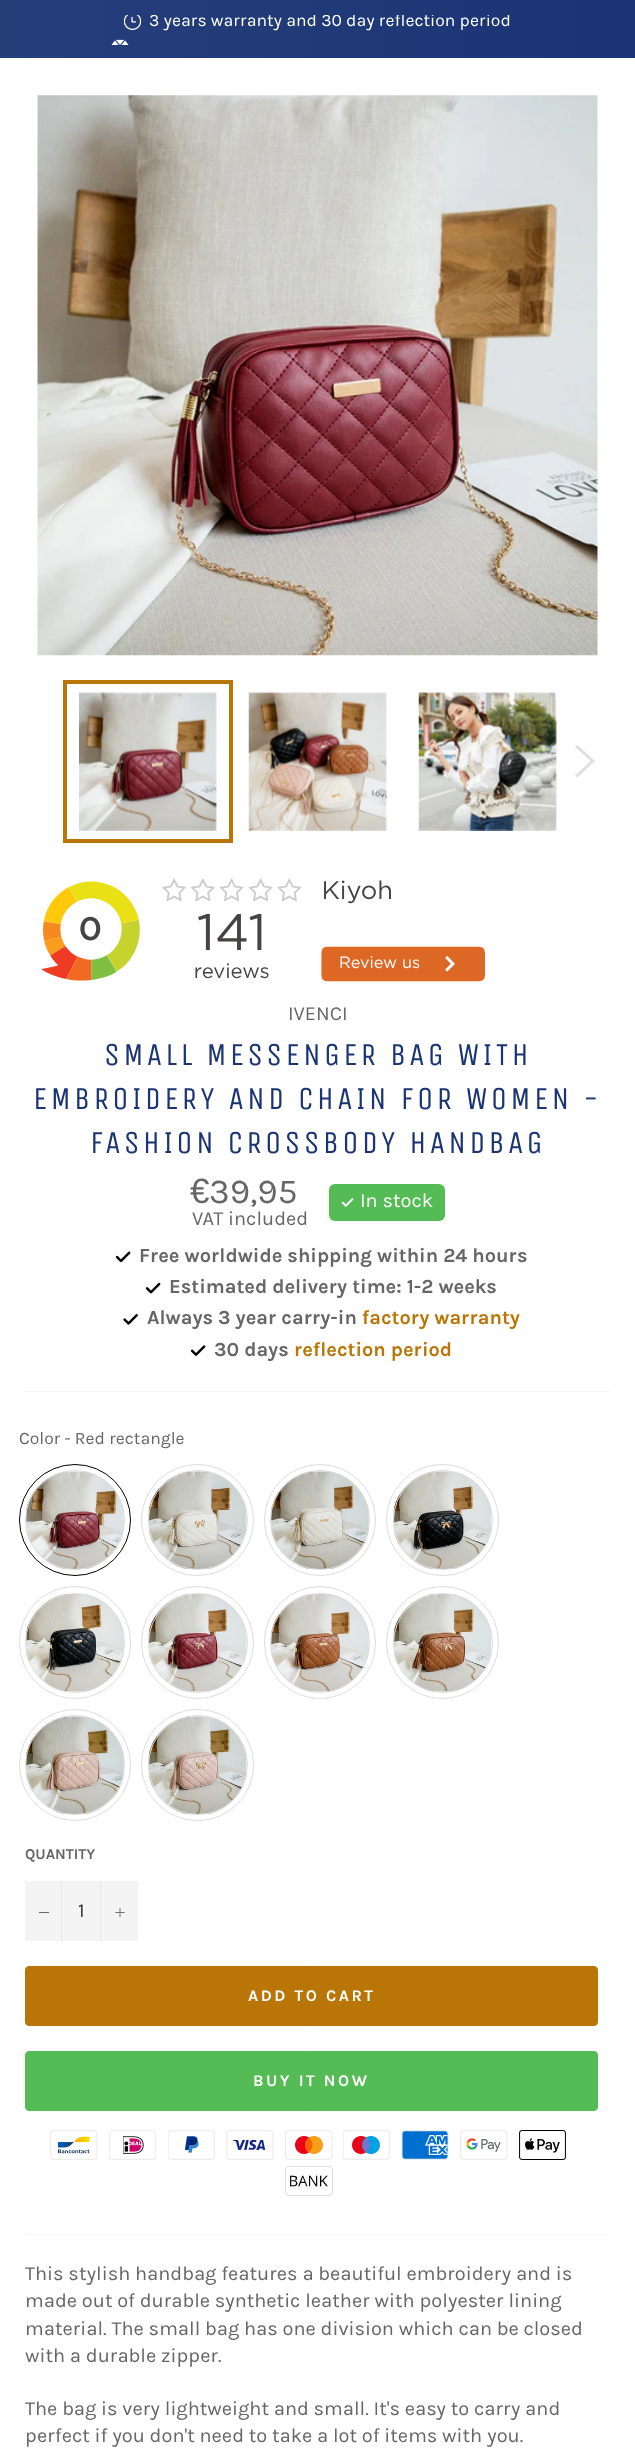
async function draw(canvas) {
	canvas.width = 635;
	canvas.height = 2464;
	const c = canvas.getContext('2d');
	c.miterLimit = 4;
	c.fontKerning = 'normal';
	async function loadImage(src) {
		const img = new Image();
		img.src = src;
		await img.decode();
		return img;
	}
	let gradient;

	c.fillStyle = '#fff';
	c.fillRect(0, 0, 635, 2464);
	gradient = c.createLinearGradient(0, -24, 635, -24);
	gradient.addColorStop(0, '#263f7b');
	gradient.addColorStop(1, '#1a3474');
	c.fillStyle = gradient;
	c.fillRect(0, 0, 635, 58);
	c.drawImage(await loadImage('img1.png'), 124, 15, 17, 15);
	c.save();
	c.beginPath();
	c.rect(13, 15, 610, 30);
	c.clip();
	c.font = '17.5px Karla';
	c.fillStyle = '#fff';
	c.fillText('3 years warranty and 30 day reflection period', 149, 26);
	c.restore();
	c.drawImage(await loadImage('img2.png'), 111, 39, 18, 6);
	c.drawImage(await loadImage('img3.png'), 37, 95, 561, 561);
	c.drawImage(await loadImage('img4.png'), 79, 692, 138, 139);
	c.strokeStyle = '#b97606';
	c.lineWidth = 4;
	c.strokeRect(65, 682, 166, 159);
	c.drawImage(await loadImage('img5.png'), 248, 692, 139, 139);
	c.drawImage(await loadImage('img6.png'), 418, 692, 139, 139);
	c.fillStyle = '#e0e0e0';
	c.beginPath();
	c.moveTo(575, 747);
	c.lineTo(577.5, 745);
	c.lineTo(595, 761);
	c.lineTo(577.5, 777.5);
	c.lineTo(575, 775.5);
	c.lineTo(590.5, 761);
	c.closePath();
	c.fill();
	c.drawImage(await loadImage('img7.png'), 41, 878, 444, 104);
	c.font = '20px Karla';
	c.fillStyle = '#666';
	c.fillText('IVENCI', 288, 1020);
	c.letterSpacing = '3.2px';
	c.font = '32px Unica One';
	c.fillStyle = '#1a3474';
	for (const [text, x, y] of [
		['SMALL MESSENGER BAG WITH', 104, 1065],
		['EMBROIDERY AND CHAIN FOR WOMEN -', 33, 1109],
		['FASHION CROSSBODY HANDBAG', 90, 1153],
	]) {
		c.fillText(text, x, y);
	}
	c.letterSpacing = '0px';
	c.font = '35px Liberation Sans';
	c.fillStyle = '#666';
	c.fillText('€', 190, 1203);
	c.font = '35px Karla';
	c.fillText('39,95', 209, 1203);
	c.font = '20px Karla';
	c.fillText('VAT included', 192, 1225);
	c.fillStyle = '#5b5';
	c.beginPath();
	c.roundRect(329, 1184, 116, 37, 6);
	c.fill();
	c.drawImage(await loadImage('img8.png'), 341, 1198, 13, 9);
	c.fillStyle = '#fff';
	c.fillText('In stock', 360, 1207);
	c.drawImage(await loadImage('img9.png'), 115, 1251, 16, 12);
	c.font = 'bold 20px Karla';
	c.fillStyle = '#666';
	c.fillText('Free worldwide shipping within 24 hours', 139, 1262);
	c.drawImage(await loadImage('img10.png'), 145, 1282, 16, 12);
	c.fillText('Estimated delivery time: 1-2 weeks', 169, 1293);
	c.drawImage(await loadImage('img11.png'), 123, 1314, 15, 11);
	c.fillText('Always 3 year carry-in', 147, 1324);
	c.fillStyle = '#b97606';
	c.fillText('factory warranty', 362, 1324);
	c.drawImage(await loadImage('img12.png'), 190, 1345, 16, 11);
	c.fillStyle = '#666';
	c.fillText('30 days', 214, 1356);
	c.fillStyle = '#b97606';
	c.fillText('reflection period', 294, 1356);
	c.fillStyle = '#f7f7f7';
	c.fillRect(25, 1391, 585, 1);
	c.font = '17.5px Karla';
	c.fillStyle = '#666';
	c.fillText('Color - Red rectangle', 19, 1444);
	c.beginPath();
	c.arc(75, 1520, 55.5, 0, 2 * Math.PI);
	c.strokeStyle = '#000';
	c.lineWidth = 1;
	c.stroke();
	c.drawImage(await loadImage('img13.png'), 26, 1471, 98, 98);
	c.beginPath();
	c.arc(75, 1520, 49.5, 0, 2 * Math.PI);
	c.strokeStyle = '#ddd';
	c.stroke();
	c.beginPath();
	c.roundRect(141.5, 1464.5, 112, 111, 55.5);
	c.stroke();
	c.drawImage(await loadImage('img14.png'), 148, 1471, 99, 98);
	c.beginPath();
	c.arc(198, 1520, 49.5, 0, 2 * Math.PI);
	c.stroke();
	c.beginPath();
	c.arc(320, 1520, 55.5, 0, 2 * Math.PI);
	c.stroke();
	c.drawImage(await loadImage('img15.png'), 271, 1471, 98, 98);
	c.beginPath();
	c.arc(320, 1520, 49.5, 0, 2 * Math.PI);
	c.stroke();
	c.beginPath();
	c.roundRect(386.5, 1464.5, 112, 111, 55.5);
	c.stroke();
	c.drawImage(await loadImage('img16.png'), 393, 1471, 99, 98);
	c.beginPath();
	c.arc(443, 1520, 49.5, 0, 2 * Math.PI);
	c.stroke();
	c.beginPath();
	c.roundRect(19.5, 1586.5, 111, 112, 55.5);
	c.stroke();
	c.drawImage(await loadImage('img17.png'), 26, 1594, 98, 98);
	c.beginPath();
	c.arc(75, 1643, 49.5, 0, 2 * Math.PI);
	c.stroke();
	c.beginPath();
	c.arc(197.5, 1642.5, 56, 0, 2 * Math.PI);
	c.stroke();
	c.drawImage(await loadImage('img18.png'), 148, 1594, 99, 98);
	c.beginPath();
	c.arc(198, 1643, 49.5, 0, 2 * Math.PI);
	c.stroke();
	c.beginPath();
	c.roundRect(264.5, 1586.5, 111, 112, 55.5);
	c.stroke();
	c.drawImage(await loadImage('img19.png'), 271, 1594, 98, 98);
	c.beginPath();
	c.arc(320, 1643, 49.5, 0, 2 * Math.PI);
	c.stroke();
	c.beginPath();
	c.arc(442.5, 1642.5, 56, 0, 2 * Math.PI);
	c.stroke();
	c.drawImage(await loadImage('img20.png'), 393, 1594, 99, 98);
	c.beginPath();
	c.arc(443, 1643, 49.5, 0, 2 * Math.PI);
	c.stroke();
	c.beginPath();
	c.arc(75, 1765, 55.5, 0, 2 * Math.PI);
	c.stroke();
	c.drawImage(await loadImage('img21.png'), 26, 1716, 98, 98);
	c.beginPath();
	c.arc(75, 1765, 49.5, 0, 2 * Math.PI);
	c.stroke();
	c.beginPath();
	c.roundRect(141.5, 1709.5, 112, 111, 55.5);
	c.stroke();
	c.drawImage(await loadImage('img22.png'), 148, 1716, 99, 98);
	c.beginPath();
	c.arc(198, 1765, 49.5, 0, 2 * Math.PI);
	c.stroke();
	c.font = 'bold 15px Karla';
	c.fillText('QUANTITY', 25, 1859);
	for (const [x, y, w, h, color] of [
		[25, 1881, 113, 60, '#f4f4f4'],
		[61, 1881, 1, 60, '#e7e7e7'],
		[39, 1912, 10, 1, '#666'],
	]) {
		c.fillStyle = color;
		c.fillRect(x, y, w, h);
	}
	c.font = '20px Karla';
	c.fillStyle = '#333';
	c.fillText('1', 78, 1917);
	c.fillStyle = '#e7e7e7';
	c.fillRect(100, 1881, 1, 60);
	c.drawImage(await loadImage('img23.png'), 115, 1908, 10, 10);
	c.fillStyle = '#b97606';
	c.beginPath();
	c.roundRect(25.5, 1966.5, 572, 59, 3.5);
	c.fill();
	c.strokeStyle = '#b97606';
	c.stroke();
	c.letterSpacing = '2.5px';
	c.font = 'bold 16.25px Karla';
	c.fillStyle = '#fff';
	c.fillText('ADD TO CART', 248, 2001);
	c.fillStyle = '#5b5';
	c.beginPath();
	c.roundRect(25.5, 2051.5, 572, 59, 3.5);
	c.fill();
	c.strokeStyle = '#5b5';
	c.stroke();
	c.fillStyle = '#fff';
	c.fillText('BUY IT NOW', 253, 2086);
	c.drawImage(await loadImage('img24.png'), 50, 2130, 48, 30);
	c.drawImage(await loadImage('img25.png'), 109, 2130, 47, 30);
	c.drawImage(await loadImage('img26.png'), 168, 2130, 47, 30);
	c.drawImage(await loadImage('img27.png'), 226, 2130, 48, 30);
	c.drawImage(await loadImage('img28.png'), 285, 2130, 48, 30);
	c.drawImage(await loadImage('img29.png'), 343, 2130, 47, 30);
	c.drawImage(await loadImage('img30.png'), 401, 2130, 48, 30);
	c.drawImage(await loadImage('img31.png'), 460, 2130, 48, 30);
	c.drawImage(await loadImage('img32.png'), 519, 2130, 47, 30);
	c.beginPath();
	c.roundRect(285.5, 2166.5, 47, 29, 3.5);
	c.strokeStyle = '#ddd';
	c.stroke();
	c.drawImage(await loadImage('img33.png'), 290, 2175, 38, 12);
	c.fillStyle = '#f7f7f7';
	c.fillRect(25, 2234, 585, 1);
	c.letterSpacing = '0px';
	c.font = '20px Karla';
	c.fillStyle = '#666';
	for (const [text, x, y] of [
		['This stylish handbag features a beautiful embroidery and is', 25, 2280],
		['made out of durable synthetic leather with polyester lining', 25, 2307],
		['material. The small bag has one division which can be closed', 25, 2335],
		['with a durable zipper.', 25, 2362],
		['The bag is very lightweight and small. It\'s easy to carry and', 25, 2415],
		['perfect if you don\'t need to take a lot of items with you.', 25, 2442],
	]) {
		c.fillText(text, x, y);
	}
}

draw(document.querySelector('canvas'));
